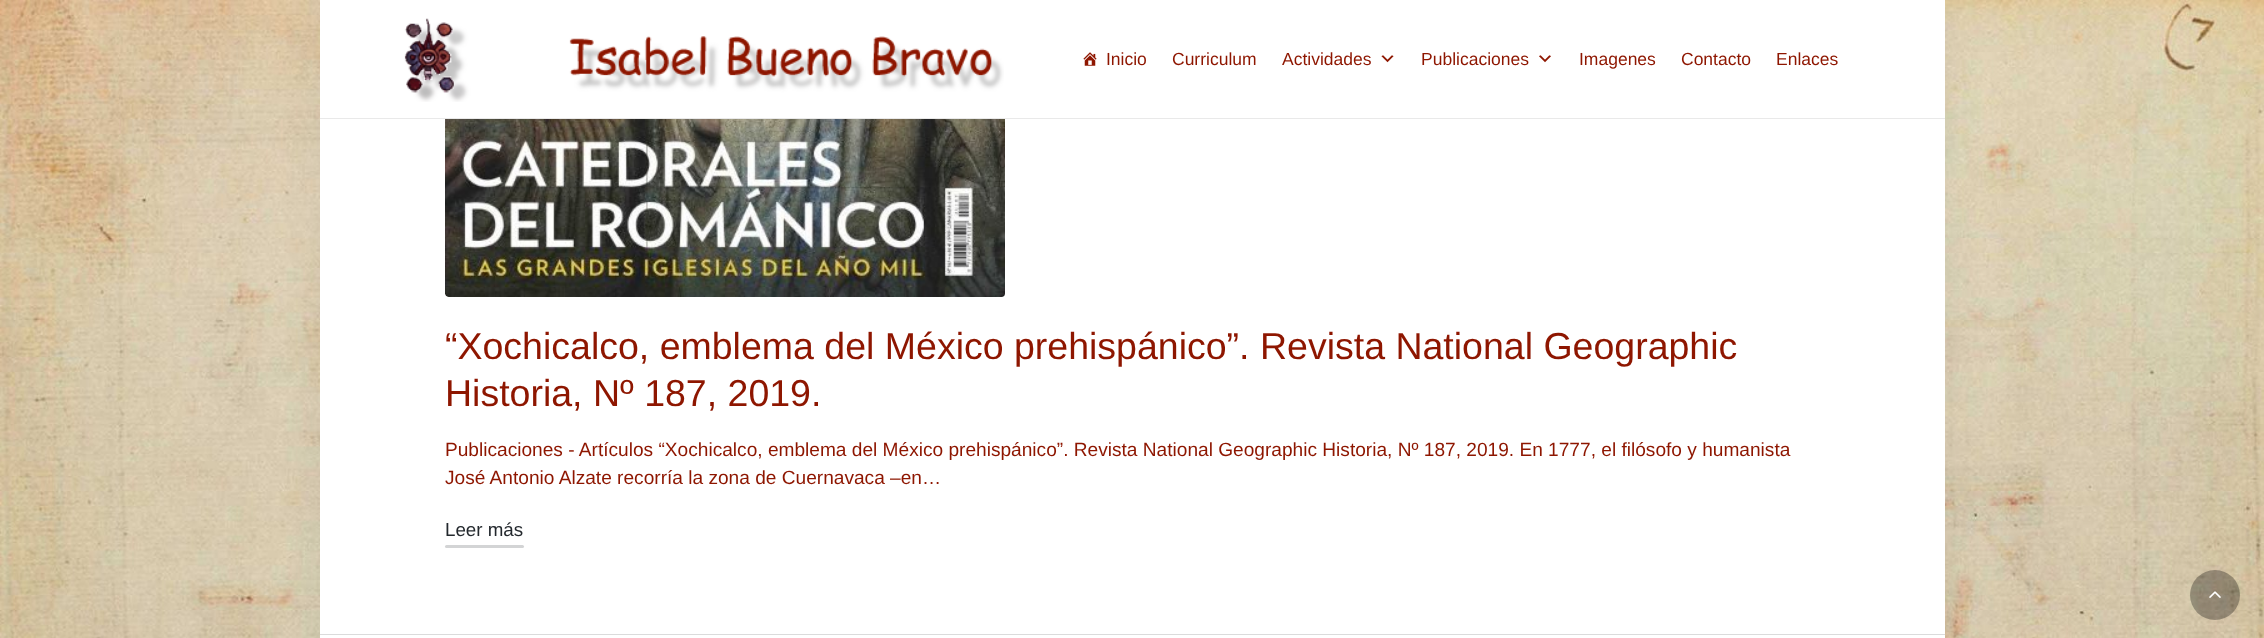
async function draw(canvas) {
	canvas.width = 2264;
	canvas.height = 638;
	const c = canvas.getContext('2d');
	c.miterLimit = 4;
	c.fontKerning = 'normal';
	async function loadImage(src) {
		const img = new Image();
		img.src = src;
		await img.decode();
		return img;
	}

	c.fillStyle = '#fff';
	c.fillRect(0, 0, 2264, 638);
	c.drawImage(await loadImage('img1.png'), 0, 0, 2264, 638);
	c.fillStyle = '#3234360f';
	c.filter = 'blur(19px)';
	c.beginPath();
	c.rect(320, -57, 1625, 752);
	c.fill();
	c.filter = 'none';
	for (const [x, y, w, h, color] of [
		[320, 119, 1625, 519, '#fff'],
		[320, 0, 1625, 118, '#fff'],
		[320, 118, 1625, 1, '#e9e9e9'],
	]) {
		c.fillStyle = color;
		c.fillRect(x, y, w, h);
	}
	c.drawImage(await loadImage('img2.png'), 404, 18, 600, 84);
	c.drawImage(await loadImage('img3.png'), 1083, 52, 14, 14);
	c.font = '17.5px Liberation Sans';
	c.fillStyle = '#8e1600';
	for (const [text, x, y] of [
		['Inicio', 1106, 65],
		['Curriculum', 1172, 65],
		['Actividades', 1282, 65],
	]) {
		c.fillText(text, x, y);
	}
	c.drawImage(await loadImage('img4.png'), 1381, 55, 13, 8);
	c.fillText('Publicaciones', 1421, 65);
	c.drawImage(await loadImage('img5.png'), 1539, 55, 12, 8);
	for (const [text, x, y] of [
		['Imagenes', 1579, 65],
		['Contacto', 1681, 65],
		['Enlaces', 1776, 65],
	]) {
		c.fillText(text, x, y);
	}
	c.drawImage(await loadImage('img6.png'), 445, 119, 560, 178);
	c.font = '37.5px Liberation Sans';
	c.fillText('“Xochicalco, emblema del México prehispánico”. Revista National Geographic', 445, 359);
	c.fillText('Historia, Nº 187, 2019.', 445, 406);
	c.font = '19.12px Liberation Sans';
	c.fillText('Publicaciones - Artículos “Xochicalco, emblema del México prehispánico”. Revista National Geographic Historia, Nº 187, 2019. En 1777, el filósofo y humanista', 445, 456);
	c.fillText('José Antonio Alzate recorría la zona de Cuernavaca –en…', 445, 484);
	c.font = '18.75px Liberation Sans';
	c.fillStyle = '#23282d';
	c.fillText('Leer más', 445, 536);
	c.fillStyle = '#d3d4d5';
	c.beginPath();
	c.roundRect(445, 545, 79, 3, 1.5);
	c.fill();
	c.fillStyle = '#dbdbdb';
	c.fillRect(320, 634, 1625, 1);
	c.fillStyle = '#0000004d';
	c.beginPath();
	c.arc(2215, 595, 25, 0, 2 * Math.PI);
	c.fill();
	c.drawImage(await loadImage('img7.png'), 2209, 591, 12, 7);
}

draw(document.querySelector('canvas'));
